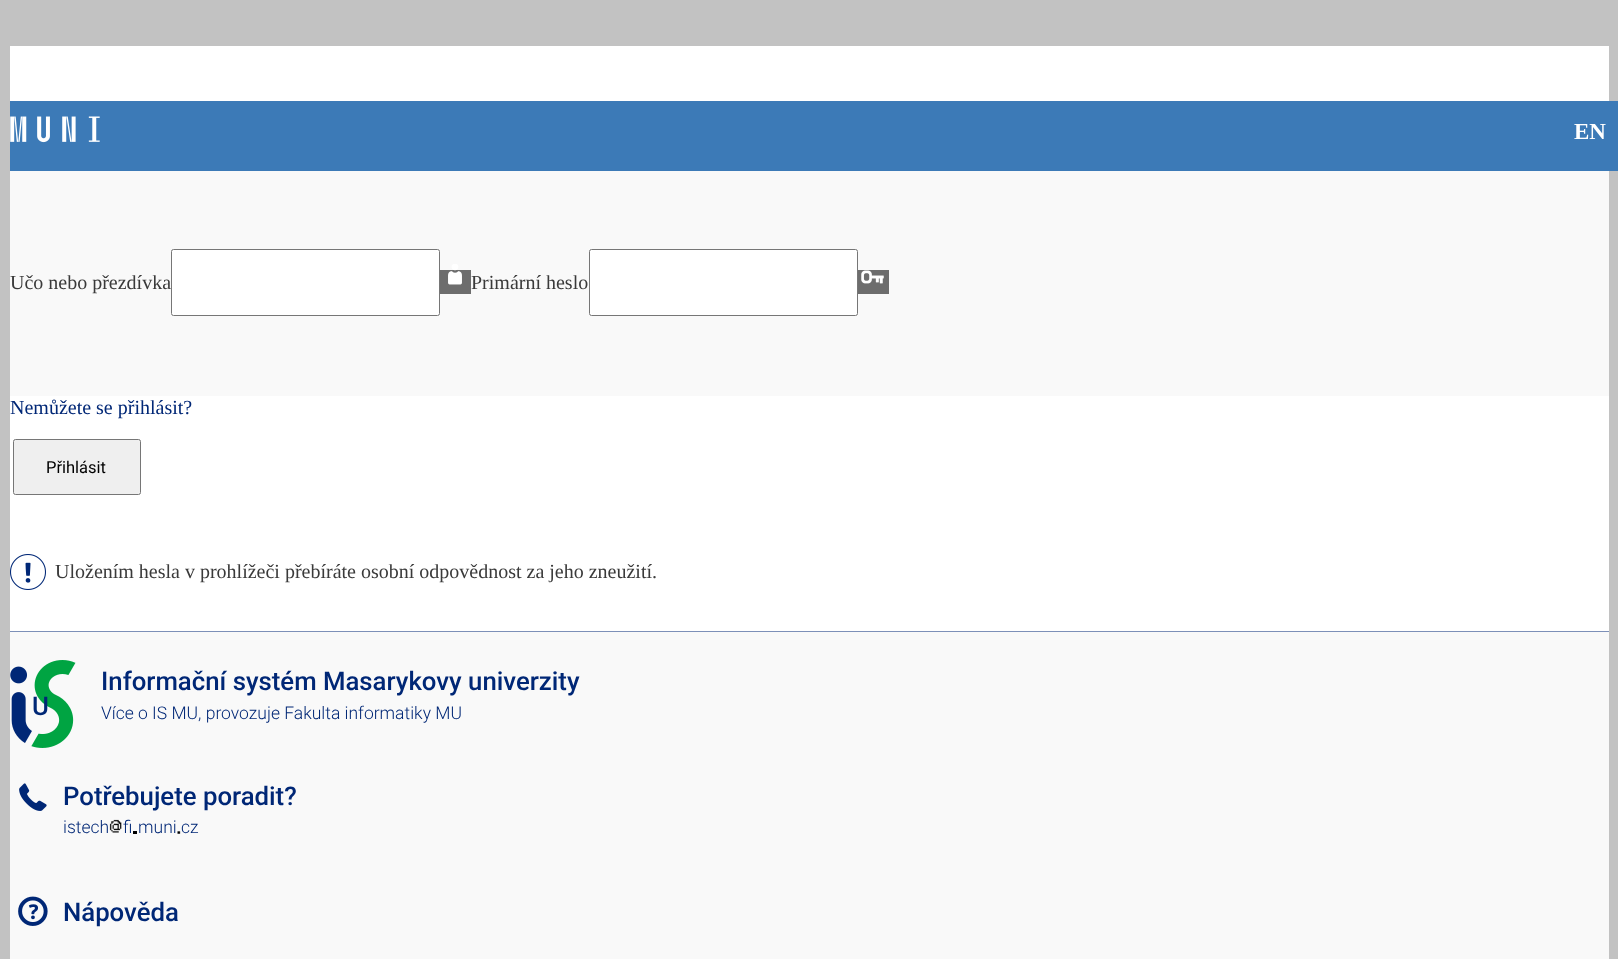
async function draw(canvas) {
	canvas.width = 1618;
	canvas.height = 959;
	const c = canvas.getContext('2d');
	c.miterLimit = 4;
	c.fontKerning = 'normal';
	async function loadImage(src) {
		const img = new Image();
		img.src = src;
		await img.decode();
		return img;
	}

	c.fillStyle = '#c2c2c2';
	c.fillRect(0, 0, 1618, 959);
	c.fillStyle = '#fff';
	c.fillRect(10, 46, 1599, 585);
	c.fillStyle = '#3c7ab7';
	c.fillRect(10, 101, 1608, 70);
	c.drawImage(await loadImage('img1.png'), 10, 116, 90, 27);
	c.font = 'bold 23px Liberation Serif';
	c.fillStyle = '#fff';
	c.fillText('EN', 1574, 139);
	c.fillStyle = '#f9f9f9';
	c.fillRect(10, 171, 1599, 225);
	c.font = '20px Liberation Serif';
	c.fillStyle = '#3a3a3a';
	c.fillText('Učo nebo přezdívka', 10, 289);
	c.fillStyle = '#fff';
	c.beginPath();
	c.roundRect(171.5, 249.5, 268, 66, 2);
	c.fill();
	c.strokeStyle = '#767676';
	c.stroke();
	c.fillStyle = '#6d6d6d';
	c.fillRect(440, 270, 31, 24);
	c.drawImage(await loadImage('img2.png'), 448, 264, 14, 21);
	c.fillStyle = '#3a3a3a';
	c.fillText('Primární heslo', 471, 289);
	c.fillStyle = '#fff';
	c.beginPath();
	c.roundRect(589.5, 249.5, 268, 66, 2);
	c.fill();
	c.stroke();
	c.fillStyle = '#6d6d6d';
	c.fillRect(858, 270, 31, 24);
	c.drawImage(await loadImage('img3.png'), 861, 270, 23, 14);
	c.fillStyle = '#002776';
	c.fillText('Nemůžete se přihlásit?', 10, 414);
	c.fillStyle = '#efefef';
	c.beginPath();
	c.roundRect(13.5, 439.5, 127, 55, 2);
	c.fill();
	c.stroke();
	c.font = '16.5px Roboto';
	c.fillStyle = '#000';
	c.fillText('Přihlásit', 46, 473);
	c.drawImage(await loadImage('img4.png'), 10, 554, 36, 36);
	c.font = '20px Liberation Serif';
	c.fillStyle = '#3a3a3a';
	c.fillText('Uložením hesla v prohlížeči přebíráte osobní odpovědnost za jeho zneužití.', 55, 578);
	c.fillStyle = '#f9f9f9';
	c.fillRect(10, 632, 1599, 327);
	c.fillStyle = '#7d90b8';
	c.fillRect(10, 631, 1599, 1);
	c.drawImage(await loadImage('img5.png'), 10, 660, 66, 88);
	c.font = '500 25.75px Roboto';
	c.fillStyle = '#002776';
	c.fillText('U', 32, 715);
	c.fillText('Informační systém Masarykovy univerzity', 101, 690);
	c.font = '300 17.5px Roboto';
	c.fillText('Více o IS MU, provozuje Fakulta informatiky MU', 101, 719);
	c.drawImage(await loadImage('img6.png'), 19, 783, 28, 28);
	c.font = '500 25.75px Roboto';
	c.fillText('Potřebujete poradit?', 63, 805);
	c.font = '300 17.5px Roboto';
	c.fillText('istech', 63, 833);
	c.drawImage(await loadImage('img7.png'), 109, 819, 13, 14);
	c.fillText('fi', 123, 833);
	c.fillText('muni', 138, 833);
	c.fillStyle = '#000';
	c.fillRect(133, 831, 4, 3);
	c.drawImage(await loadImage('img8.png'), 177, 831, 4, 3);
	c.fillStyle = '#002776';
	c.fillText('cz', 181, 833);
	c.drawImage(await loadImage('img9.png'), 18, 896, 30, 30);
	c.font = '500 25.75px Roboto';
	c.fillText('Nápověda', 63, 921);
}

draw(document.querySelector('canvas'));
